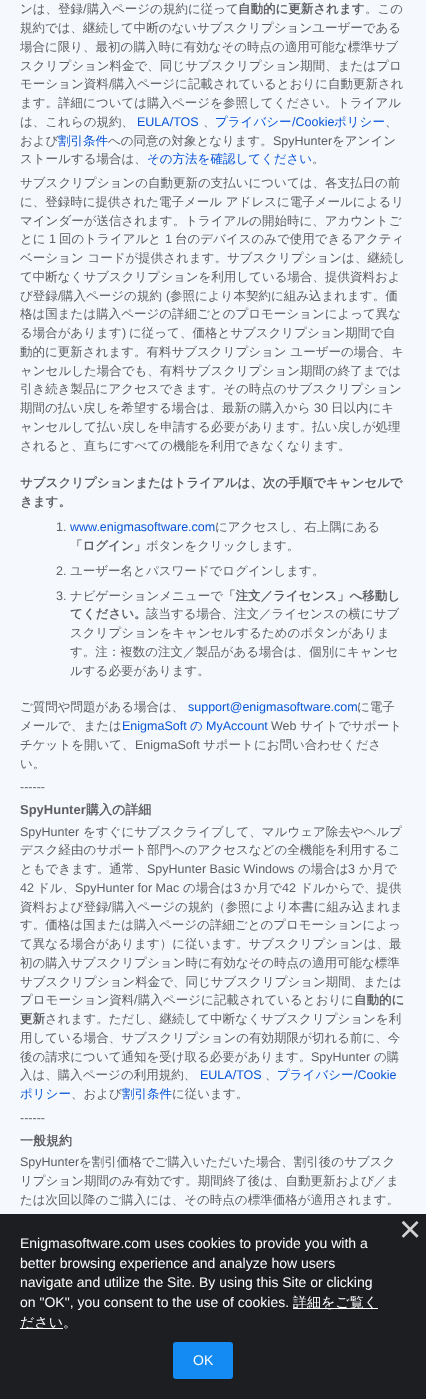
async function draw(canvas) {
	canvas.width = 426;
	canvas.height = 1399;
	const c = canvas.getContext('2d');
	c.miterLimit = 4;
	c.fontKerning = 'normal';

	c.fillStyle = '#f5f8fd';
	c.fillRect(0, 0, 426, 1399);
	c.font = '500 12.5px WenQuanYi Zen Hei';
	c.fillStyle = '#5f5f63';
	c.fillText('ンは、登録', 20, 13);
	c.font = '12.5px Liberation Sans';
	c.fillText('/', 83, 13);
	c.font = '500 12.5px WenQuanYi Zen Hei';
	c.fillText('購入ページの規約に従って', 87, 13);
	c.font = 'bold 12.5px WenQuanYi Zen Hei';
	c.fillText('自動的に更新されます', 238, 13);
	c.font = '500 12.5px WenQuanYi Zen Hei';
	for (const [text, x, y] of [
		['。この', 365, 13],
		['規約では、継続して中断のないサブスクリプションユーザーである', 20, 32],
		['場合に限り、最初の購入時に有効なその時点の適用可能な標準サブ', 20, 51],
		['スクリプション料金で、同じサブスクリプション期間、またはプロ', 20, 70],
		['モーション資料', 20, 88],
	]) {
		c.fillText(text, x, y);
	}
	c.font = '12.5px Liberation Sans';
	c.fillText('/', 109, 88);
	c.font = '500 12.5px WenQuanYi Zen Hei';
	for (const [text, x, y] of [
		['購入ページに記載されているとおりに自動更新され', 112, 88],
		['ます。詳細については購入ページを参照してください。トライアル', 20, 107],
		['は、これらの規約、', 20, 126],
	]) {
		c.fillText(text, x, y);
	}
	c.font = '12.5px Liberation Sans';
	c.fillStyle = '#0955d7';
	c.fillText('EULA/TOS', 137, 126);
	c.font = '500 12.5px WenQuanYi Zen Hei';
	c.fillStyle = '#5f5f63';
	c.fillText('、', 203, 126);
	c.fillStyle = '#0955d7';
	c.fillText('プライバシー', 215, 126);
	c.font = '12.5px Liberation Sans';
	c.fillText('/Cookie', 292, 126);
	c.font = '500 12.5px WenQuanYi Zen Hei';
	c.fillText('ポリシー', 334, 126);
	c.fillStyle = '#5f5f63';
	c.fillText('、', 385, 126);
	c.fillText('および', 20, 145);
	c.fillStyle = '#0955d7';
	c.fillText('割引条件', 58, 145);
	c.fillStyle = '#5f5f63';
	c.fillText('への同意の対象となります。', 108, 145);
	c.font = '12.5px Liberation Sans';
	c.fillText('SpyHunter', 273, 145);
	c.font = '500 12.5px WenQuanYi Zen Hei';
	c.fillText('をアンイン', 332, 145);
	c.fillText('ストールする場合は、', 20, 163);
	c.fillStyle = '#0955d7';
	c.fillText('その方法を確認してください', 147, 163);
	c.fillStyle = '#5f5f63';
	for (const [text, x, y] of [
		['。', 312, 163],
		['サブスクリプションの自動更新の支払いについては、各支払日の前', 20, 187],
		['に、登録時に提供された電子メール アドレスに電子メールによるリ', 20, 206],
		['マインダーが送信されます。トライアルの開始時に、アカウントご', 20, 225],
		['とに', 20, 243],
	]) {
		c.fillText(text, x, y);
	}
	c.font = '12.5px Liberation Sans';
	c.fillText('1', 49, 243);
	c.font = '500 12.5px WenQuanYi Zen Hei';
	c.fillText('回のトライアルと', 59, 243);
	c.font = '12.5px Liberation Sans';
	c.fillText('1', 165, 243);
	c.font = '500 12.5px WenQuanYi Zen Hei';
	for (const [text, x, y] of [
		['台のデバイスのみで使用できるアクティ', 175, 243],
		['ベーション コードが提供されます。サブスクリプションは、継続し', 20, 262],
		['て中断なくサブスクリプションを利用している場合、提供資料およ', 20, 281],
		['び登録', 20, 300],
	]) {
		c.fillText(text, x, y);
	}
	c.font = '12.5px Liberation Sans';
	c.fillText('/', 58, 300);
	c.font = '500 12.5px WenQuanYi Zen Hei';
	c.fillText('購入ページの規約', 61, 300);
	c.font = '12.5px Liberation Sans';
	c.fillText('(', 166, 300);
	c.font = '500 12.5px WenQuanYi Zen Hei';
	for (const [text, x, y] of [
		['参照により本契約に組み込まれます。価', 170, 300],
		['格は国または購入ページの詳細ごとのプロモーションによって異な', 20, 318],
		['る場合があります', 20, 337],
	]) {
		c.fillText(text, x, y);
	}
	c.font = '12.5px Liberation Sans';
	c.fillText(')', 122, 337);
	c.font = '500 12.5px WenQuanYi Zen Hei';
	for (const [text, x, y] of [
		['に従って、価格とサブスクリプション期間で自', 129, 337],
		['動的に更新されます。有料サブスクリプション ユーザーの場合、キ', 20, 356],
		['ャンセルした場合でも、有料サブスクリプション期間の終了までは', 20, 375],
		['引き続き製品にアクセスできます。その時点のサブスクリプション', 20, 393],
		['期間の払い戻しを希望する場合は、最新の購入から', 20, 412],
	]) {
		c.fillText(text, x, y);
	}
	c.font = '12.5px Liberation Sans';
	c.fillText('30', 314, 412);
	c.font = '500 12.5px WenQuanYi Zen Hei';
	for (const [text, x, y] of [
		['日以内にキ', 331, 412],
		['ャンセルして払い戻しを申請する必要があります。払い戻しが処理', 20, 431],
		['されると、直ちにすべての機能を利用できなくなります。', 20, 450],
	]) {
		c.fillText(text, x, y);
	}
	c.font = 'bold 12.5px WenQuanYi Zen Hei';
	c.fillText('サブスクリプションまたはトライアルは、次の手順でキャンセルで', 20, 487);
	c.fillText('きます。', 20, 506);
	c.font = '12.5px Liberation Sans';
	c.fillText('1.', 56, 531);
	c.fillStyle = '#0955d7';
	c.fillText('www.enigmasoftware.com', 70, 531);
	c.font = '500 12.5px WenQuanYi Zen Hei';
	c.fillStyle = '#5f5f63';
	c.fillText('にアクセスし、右上隅にある', 215, 531);
	c.font = 'bold 12.5px WenQuanYi Zen Hei';
	c.fillText('「ログイン」', 70, 550);
	c.font = '500 12.5px WenQuanYi Zen Hei';
	c.fillText('ボタンをクリックします。', 146, 550);
	c.font = '12.5px Liberation Sans';
	c.fillText('2.', 56, 575);
	c.font = '500 12.5px WenQuanYi Zen Hei';
	c.fillText('ユーザー名とパスワードでログインします。', 70, 575);
	c.font = '12.5px Liberation Sans';
	c.fillText('3.', 56, 600);
	c.font = '500 12.5px WenQuanYi Zen Hei';
	c.fillText('ナビゲーションメニューで', 70, 600);
	c.font = 'bold 12.5px WenQuanYi Zen Hei';
	c.fillText('「注文／ライセンス」へ移動し', 223, 600);
	c.fillText('てください。', 70, 618);
	c.font = '500 12.5px WenQuanYi Zen Hei';
	for (const [text, x, y] of [
		['該当する場合、注文／ライセンスの横にサブ', 146, 618],
		['スクリプションをキャンセルするためのボタンがありま', 70, 637],
		['す。注：複数の注文／製品がある場合は、個別にキャンセ', 70, 656],
		['ルする必要があります。', 70, 675],
		['ご質問や問題がある場合は、', 20, 711],
	]) {
		c.fillText(text, x, y);
	}
	c.font = '12.5px Liberation Sans';
	c.fillStyle = '#0955d7';
	c.fillText('support@enigmasoftware.com', 188, 711);
	c.font = '500 12.5px WenQuanYi Zen Hei';
	c.fillStyle = '#5f5f63';
	c.fillText('に電子', 357, 711);
	c.fillText('メールで、または', 20, 730);
	c.font = '12.5px Liberation Sans';
	c.fillStyle = '#0955d7';
	c.fillText('EnigmaSoft', 122, 730);
	c.font = '500 12.5px WenQuanYi Zen Hei';
	c.fillText('の', 190, 730);
	c.font = '12.5px Liberation Sans';
	c.fillText('MyAccount', 206, 730);
	c.fillStyle = '#5f5f63';
	c.fillText('Web', 271, 730);
	c.font = '500 12.5px WenQuanYi Zen Hei';
	c.fillText('サイトでサポート', 300, 730);
	c.fillText('チケットを開いて、', 20, 749);
	c.font = '12.5px Liberation Sans';
	c.fillText('EnigmaSoft', 135, 749);
	c.font = '500 12.5px WenQuanYi Zen Hei';
	c.fillText('サポートにお問い合わせくださ', 203, 749);
	c.fillText('い。', 20, 768);
	c.font = '12.5px Liberation Sans';
	c.fillText('------', 20, 791);
	c.font = 'bold 13px Liberation Sans';
	c.fillText('SpyHunter', 20, 814);
	c.font = 'bold 13px WenQuanYi Zen Hei';
	c.fillText('購入の詳細', 86, 814);
	c.font = '12.5px Liberation Sans';
	c.fillText('SpyHunter', 20, 836);
	c.font = '500 12.5px WenQuanYi Zen Hei';
	for (const [text, x, y] of [
		['をすぐにサブスクライブして、マルウェア除去やヘルプ', 83, 836],
		['デスク経由のサポート部門へのアクセスなどの全機能を利用するこ', 20, 854],
		['ともできます。通常、', 20, 873],
	]) {
		c.fillText(text, x, y);
	}
	c.font = '12.5px Liberation Sans';
	c.fillText('SpyHunter Basic Windows', 147, 873);
	c.font = '500 12.5px WenQuanYi Zen Hei';
	c.fillText('の場合は', 298, 873);
	c.font = '12.5px Liberation Sans';
	c.fillText('3', 348, 873);
	c.font = '500 12.5px WenQuanYi Zen Hei';
	c.fillText('か月で', 359, 873);
	c.font = '12.5px Liberation Sans';
	c.fillText('42', 20, 892);
	c.font = '500 12.5px WenQuanYi Zen Hei';
	c.fillText('ドル、', 37, 892);
	c.font = '12.5px Liberation Sans';
	c.fillText('SpyHunter for Mac', 75, 892);
	c.font = '500 12.5px WenQuanYi Zen Hei';
	c.fillText('の場合は', 183, 892);
	c.font = '12.5px Liberation Sans';
	c.fillText('3', 234, 892);
	c.font = '500 12.5px WenQuanYi Zen Hei';
	c.fillText('か月で', 244, 892);
	c.font = '12.5px Liberation Sans';
	c.fillText('42', 282, 892);
	c.font = '500 12.5px WenQuanYi Zen Hei';
	c.fillText('ドルからで、提供', 300, 892);
	c.fillText('資料および登録', 20, 911);
	c.font = '12.5px Liberation Sans';
	c.fillText('/', 108, 911);
	c.font = '500 12.5px WenQuanYi Zen Hei';
	for (const [text, x, y] of [
		['購入ページの規約（参照により本書に組み込まれま', 112, 911],
		['す。価格は国または購入ページの詳細ごとのプロモーションによっ', 20, 929],
		['て異なる場合があります）に従います。サブスクリプションは、最', 20, 948],
		['初の購入サブスクリプション時に有効なその時点の適用可能な標準', 20, 967],
		['サブスクリプション料金で、同じサブスクリプション期間、または', 20, 986],
		['プロモーション資料', 20, 1004],
	]) {
		c.fillText(text, x, y);
	}
	c.font = '12.5px Liberation Sans';
	c.fillText('/', 134, 1004);
	c.font = '500 12.5px WenQuanYi Zen Hei';
	c.fillText('購入ページに記載されているとおりに', 138, 1004);
	c.font = 'bold 12.5px WenQuanYi Zen Hei';
	c.fillText('自動的に', 354, 1004);
	c.fillText('更新', 20, 1023);
	c.font = '500 12.5px WenQuanYi Zen Hei';
	for (const [text, x, y] of [
		['されます。ただし、継続して中断なくサブスクリプションを利', 45, 1023],
		['用している場合、サブスクリプションの有効期限が切れる前に、今', 20, 1042],
		['後の請求について通知を受け取る必要があります。', 20, 1061],
	]) {
		c.fillText(text, x, y);
	}
	c.font = '12.5px Liberation Sans';
	c.fillText('SpyHunter', 311, 1061);
	c.font = '500 12.5px WenQuanYi Zen Hei';
	c.fillText('の購', 374, 1061);
	c.fillText('入は、購入ページの利用規約、', 20, 1079);
	c.font = '12.5px Liberation Sans';
	c.fillStyle = '#0955d7';
	c.fillText('EULA/TOS', 200, 1079);
	c.font = '500 12.5px WenQuanYi Zen Hei';
	c.fillStyle = '#5f5f63';
	c.fillText('、', 265, 1079);
	c.fillStyle = '#0955d7';
	c.fillText('プライバシー', 277, 1079);
	c.font = '12.5px Liberation Sans';
	c.fillText('/Cookie', 354, 1079);
	c.font = '500 12.5px WenQuanYi Zen Hei';
	c.fillText('ポリシー', 20, 1098);
	c.fillStyle = '#5f5f63';
	c.fillText('、および', 71, 1098);
	c.fillStyle = '#0955d7';
	c.fillText('割引条件', 122, 1098);
	c.fillStyle = '#5f5f63';
	c.fillText('に従います。', 172, 1098);
	c.font = '12.5px Liberation Sans';
	c.fillText('------', 20, 1122);
	c.font = 'bold 13px WenQuanYi Zen Hei';
	c.fillText('一般規約', 20, 1145);
	c.font = '12.5px Liberation Sans';
	c.fillText('SpyHunter', 20, 1166);
	c.font = '500 12.5px WenQuanYi Zen Hei';
	for (const [text, x, y] of [
		['を割引価格でご購入いただいた場合、割引後のサブスク', 79, 1166],
		['リプション期間のみ有効です。期間終了後は、自動更新および／ま', 20, 1185],
		['たは次回以降のご購入には、その時点の標準価格が適用されます。', 20, 1204],
	]) {
		c.fillText(text, x, y);
	}
	c.fillStyle = '#1d1e22';
	c.fillRect(0, 1214, 426, 185);
	c.font = '38px Liberation Sans';
	c.fillStyle = '#d2d2d3';
	c.fillText('×', 399, 1242);
	c.font = '14px Liberation Sans';
	c.fillStyle = '#fff';
	for (const [text, x, y] of [
		['Enigmasoftware.com uses cookies to provide you with a', 20, 1248],
		['better browsing experience and analyze how users', 20, 1268],
		['navigate and utilize the Site. By using this Site or clicking', 20, 1287],
		['on "OK", you consent to the use of cookies.', 20, 1307],
	]) {
		c.fillText(text, x, y);
	}
	c.fillRect(293, 1308, 85, 1);
	c.font = '500 14px WenQuanYi Zen Hei';
	c.fillText('詳細をご覧く', 293, 1307);
	c.fillRect(20, 1328, 43, 1);
	c.fillText('ださい。', 20, 1327);
	c.fillStyle = '#138bf2';
	c.beginPath();
	c.roundRect(173, 1342, 60, 37, 3);
	c.fill();
	c.font = '14px Liberation Sans';
	c.fillStyle = '#fff';
	c.fillText('OK', 193, 1365);
}

draw(document.querySelector('canvas'));
